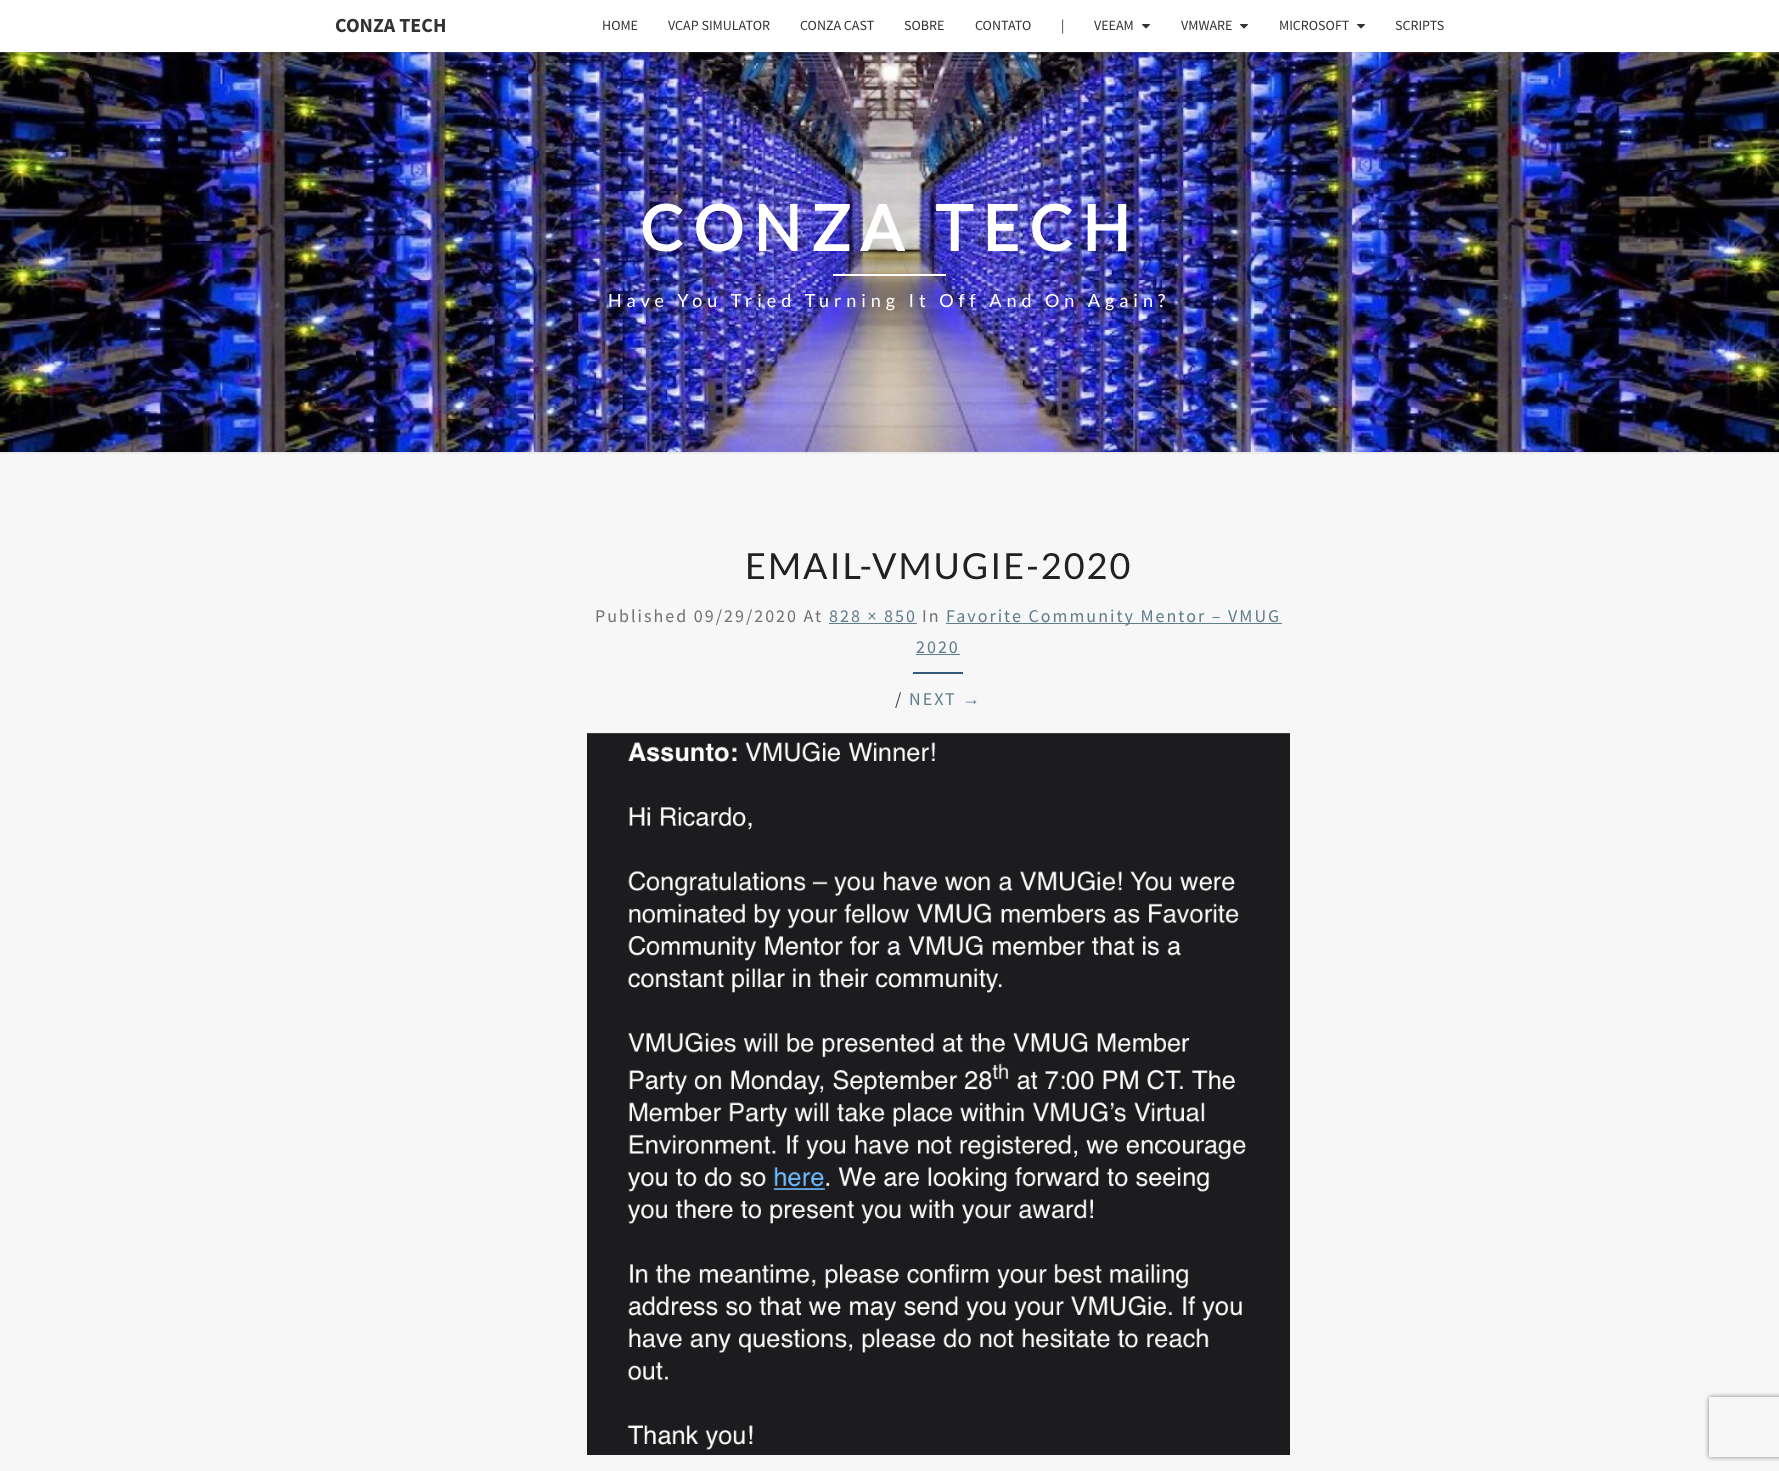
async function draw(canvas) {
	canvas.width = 1779;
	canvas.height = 1471;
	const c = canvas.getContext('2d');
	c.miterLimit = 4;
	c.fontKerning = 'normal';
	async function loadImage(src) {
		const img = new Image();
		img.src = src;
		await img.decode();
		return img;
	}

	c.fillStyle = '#f7f7f7';
	c.fillRect(0, 0, 1779, 1471);
	c.fillStyle = '#b6b6b64d';
	c.filter = 'blur(1px)';
	c.beginPath();
	c.rect(-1, 51, 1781, 402);
	c.fill();
	c.filter = 'none';
	c.drawImage(await loadImage('img2.png'), 0, 52, 1779, 400);
	c.fillStyle = '#64646433';
	c.filter = 'blur(0.5px)';
	c.beginPath();
	c.rect(0, 1, 1779, 52);
	c.fill();
	c.filter = 'none';
	c.fillStyle = '#fff';
	c.fillRect(0, 0, 1779, 52);
	c.font = 'bold 20px Source Sans Pro';
	c.fillStyle = '#333';
	c.fillText('CONZA TECH', 335, 32);
	c.font = '14px Source Sans Pro';
	for (const [text, x, y] of [
		['HOME', 602, 30],
		['VCAP SIMULATOR', 668, 30],
		['CONZA CAST', 800, 30],
		['SOBRE', 904, 30],
		['CONTATO', 975, 30],
		['|', 1061, 30],
		['VEEAM', 1094, 30],
	]) {
		c.fillText(text, x, y);
	}
	c.drawImage(await loadImage('img1.png'), 1142, 24, 8, 5);
	c.fillText('VMWARE', 1181, 30);
	c.drawImage(await loadImage('img1.png'), 1240, 24, 8, 5);
	c.fillText('MICROSOFT', 1279, 30);
	c.drawImage(await loadImage('img1.png'), 1357, 24, 8, 5);
	c.fillText('SCRIPTS', 1395, 30);
	c.letterSpacing = '10px';
	c.font = 'bold 63px Lato';
	c.fillStyle = '#fff';
	c.fillText('CONZA TECH', 640, 251);
	c.fillRect(833, 274, 113, 2);
	c.letterSpacing = '5px';
	c.font = '18px Lato';
	c.fillText('Have You Tried Turning It Off And On Again?', 608, 307);
	c.letterSpacing = '2px';
	c.font = '36px Lato';
	c.fillStyle = '#212121';
	c.fillText('EMAIL-VMUGIE-2020', 745, 579);
	c.font = '18px Source Sans Pro';
	c.fillStyle = '#727272';
	c.fillText('Published 09/29/2020 At', 595, 622);
	c.fillStyle = '#607d8b';
	c.fillText('828 × 850', 829, 622);
	c.fillRect(829, 623, 88, 1);
	c.fillStyle = '#727272';
	c.fillText('In', 922, 622);
	c.fillStyle = '#607d8b';
	c.fillRect(946, 623, 336, 1);
	c.fillText('Favorite Community Mentor – VMUG', 946, 622);
	c.fillText('2020', 916, 653);
	c.fillRect(916, 654, 44, 1);
	c.fillStyle = '#34597c';
	c.fillRect(913, 672, 50, 2);
	c.fillStyle = '#424242';
	c.fillText('/', 895, 705);
	c.fillStyle = '#607d8b';
	c.fillText('NEXT', 909, 705);
	c.font = '18px Liberation Sans';
	c.fillText('→', 962, 705);
	c.drawImage(await loadImage('img3.png'), 587, 733, 703, 722);
	c.save();
	c.beginPath();
	c.moveTo(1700, 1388);
	c.lineTo(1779, 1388);
	c.lineTo(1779, 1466);
	c.lineTo(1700, 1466);
	c.closePath();
	c.moveTo(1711, 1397);
	c.lineTo(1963, 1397);
	c.bezierCurveTo(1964, 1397, 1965, 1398, 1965, 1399);
	c.lineTo(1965, 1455);
	c.bezierCurveTo(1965, 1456, 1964, 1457, 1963, 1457);
	c.lineTo(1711, 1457);
	c.bezierCurveTo(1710, 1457, 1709, 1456, 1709, 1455);
	c.lineTo(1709, 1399);
	c.bezierCurveTo(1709, 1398, 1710, 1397, 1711, 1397);
	c.closePath();
	c.clip('evenodd');
	c.fillStyle = '#808080';
	c.filter = 'blur(2.5px)';
	c.beginPath();
	c.roundRect(1709, 1397, 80, 60, 2);
	c.fill();
	c.filter = 'none';
	c.restore();
}

draw(document.querySelector('canvas'));
